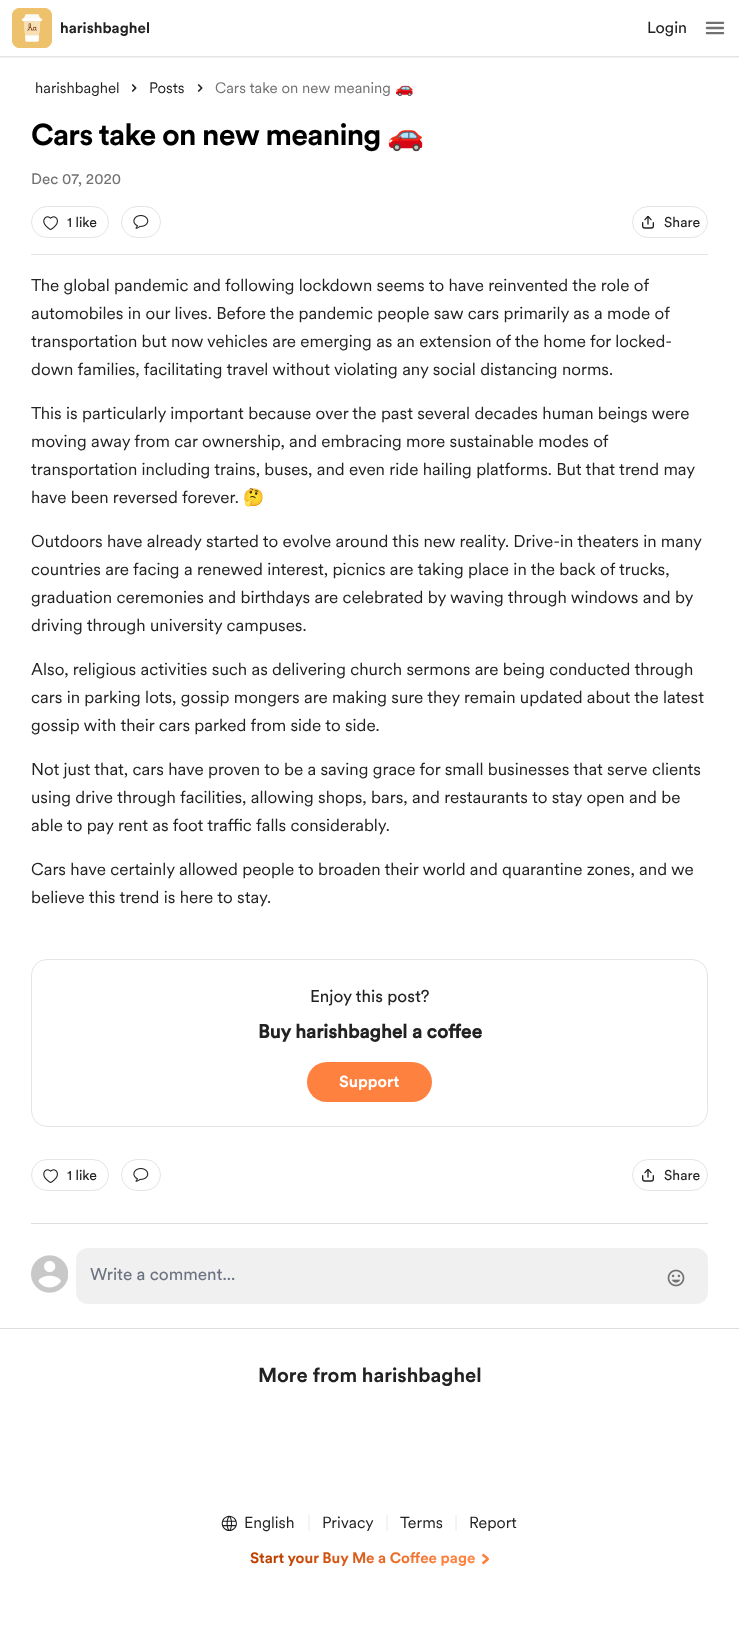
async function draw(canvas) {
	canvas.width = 739;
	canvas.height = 1635;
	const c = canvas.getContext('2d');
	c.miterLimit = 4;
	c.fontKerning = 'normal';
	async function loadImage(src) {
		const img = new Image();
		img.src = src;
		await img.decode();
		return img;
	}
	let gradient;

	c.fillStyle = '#fff';
	c.fillRect(0, 0, 739, 1635);
	c.save();
	c.beginPath();
	c.rect(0, 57, 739, 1);
	c.clip();
	c.fillStyle = '#0000000f';
	c.filter = 'blur(0.5px)';
	c.beginPath();
	c.rect(0, 1, 739, 57);
	c.fill();
	c.filter = 'none';
	c.restore();
	c.fillStyle = '#e5e5e5';
	c.fillRect(0, 56, 739, 1);
	c.drawImage(await loadImage('img1.png'), 12, 8, 40, 40);
	c.drawImage(await loadImage('img2.png'), 12, 8, 40, 40);
	c.font = 'bold 15px "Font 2"';
	c.fillStyle = '#222';
	c.fillText('harishbaghel', 60, 33);
	c.font = '16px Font';
	c.fillText('Login', 647, 33);
	c.drawImage(await loadImage('img3.png'), 705, 21, 20, 14);
	c.font = '15px "Font 2"';
	c.fillText('harishbaghel', 35, 93);
	c.drawImage(await loadImage('img4.png'), 131, 84, 6, 8);
	c.fillText('Posts', 149, 93);
	c.drawImage(await loadImage('img4.png'), 197, 84, 6, 8);
	c.fillStyle = '#717171';
	c.fillText('Cars take on new meaning', 215, 93);
	c.font = '15px Noto Color Emoji';
	c.fillText('🚗', 395, 93);
	c.letterSpacing = '-0.75px';
	c.font = 'bold 30px "Font 2"';
	c.fillStyle = '#000';
	c.fillText('Cars take on new meaning', 31, 145);
	c.font = '30px Noto Color Emoji';
	c.fillText('🚗', 387, 145);
	c.letterSpacing = '0px';
	c.font = '15px Font';
	c.fillStyle = '#717171';
	c.fillText('Dec 07, 2020', 31, 184);
	c.fillStyle = '#e5e5e5';
	c.fillRect(31, 254, 677, 1);
	c.beginPath();
	c.roundRect(31.5, 206.5, 77, 31, 15.5);
	c.strokeStyle = '#e5e5e5';
	c.stroke();
	c.drawImage(await loadImage('img5.png'), 43, 216, 15, 14);
	c.font = '14px Font';
	c.fillStyle = '#222';
	c.fillText('1 like', 67, 227);
	c.beginPath();
	c.roundRect(121.5, 206.5, 39, 31, 15.5);
	c.stroke();
	c.drawImage(await loadImage('img6.png'), 133, 215, 16, 14);
	c.beginPath();
	c.roundRect(632.5, 206.5, 75, 31, 15.5);
	c.stroke();
	c.drawImage(await loadImage('img7.png'), 642, 216, 12, 13);
	c.fillText('Share', 664, 227);
	c.font = '17px "Font 2"';
	for (const [text, x, y] of [
		['The global pandemic and following lockdown seems to have reinvented the role of', 31, 291],
		['automobiles in our lives. Before the pandemic people saw cars primarily as a mode of', 31, 319],
		['transportation but now vehicles are emerging as an extension of the home for locked-', 31, 347],
		['down families, facilitating travel without violating any social distancing norms.', 31, 375],
		['This is particularly important because over the past several decades human beings were', 31, 419],
		['moving away from car ownership, and embracing more sustainable modes of', 31, 447],
		['transportation including trains, buses, and even ride hailing platforms. But that trend may', 31, 475],
		['have been reversed forever.', 31, 503],
	]) {
		c.fillText(text, x, y);
	}
	c.font = '17px Noto Color Emoji';
	c.fillText('🤔', 243, 503);
	c.font = '17px "Font 2"';
	for (const [text, x, y] of [
		['Outdoors have already started to evolve around this new reality. Drive-in theaters in many', 31, 547],
		['countries are facing a renewed interest, picnics are taking place in the back of trucks,', 31, 575],
		['graduation ceremonies and birthdays are celebrated by waving through windows and by', 31, 603],
		['driving through university campuses.', 31, 631],
		['Also, religious activities such as delivering church sermons are being conducted through', 31, 675],
		['cars in parking lots, gossip mongers are making sure they remain updated about the latest', 31, 703],
		['gossip with their cars parked from side to side.', 31, 731],
		['Not just that, cars have proven to be a saving grace for small businesses that serve clients', 31, 775],
		['using drive through facilities, allowing shops, bars, and restaurants to stay open and be', 31, 803],
		['able to pay rent as foot traffic falls considerably.', 31, 831],
		['Cars have certainly allowed people to broaden their world and quarantine zones, and we', 31, 875],
		['believe this trend is here to stay.', 31, 903],
	]) {
		c.fillText(text, x, y);
	}
	c.beginPath();
	c.roundRect(31.5, 959.5, 676, 167, 15.5);
	c.stroke();
	c.font = '17px Font';
	c.fillText('Enjoy this post?', 310, 1002);
	c.font = 'bold 19px Font';
	c.fillText('Buy harishbaghel a coffee', 258, 1038);
	c.fillStyle = '#ff813f';
	c.beginPath();
	c.roundRect(307, 1062, 125, 40, 20);
	c.fill();
	c.font = 'bold 16px "Font 2"';
	c.fillStyle = '#fff';
	c.fillText('Support', 339, 1087);
	c.beginPath();
	c.roundRect(31.5, 1159.5, 77, 31, 15.5);
	c.stroke();
	c.drawImage(await loadImage('img5.png'), 43, 1169, 15, 14);
	c.font = '14px Font';
	c.fillStyle = '#222';
	c.fillText('1 like', 67, 1180);
	c.beginPath();
	c.roundRect(121.5, 1159.5, 39, 31, 15.5);
	c.stroke();
	c.drawImage(await loadImage('img6.png'), 133, 1168, 16, 14);
	c.beginPath();
	c.roundRect(632.5, 1159.5, 75, 31, 15.5);
	c.stroke();
	c.drawImage(await loadImage('img7.png'), 642, 1169, 12, 13);
	c.fillText('Share', 664, 1180);
	c.fillStyle = '#ddd';
	c.fillRect(31, 1223, 677, 1);
	c.drawImage(await loadImage('img8.png'), 31, 1255, 37, 38);
	c.fillStyle = '#f0f0f0';
	c.beginPath();
	c.roundRect(76, 1248, 632, 56, 12);
	c.fill();
	c.font = '17px Font';
	c.fillStyle = '#6b7280';
	c.fillText('Write a comment...', 90, 1280);
	c.drawImage(await loadImage('img9.png'), 667, 1269, 18, 18);
	c.fillStyle = '#ddd';
	c.fillRect(0, 1328, 739, 1);
	c.font = 'bold 20px "Font 2"';
	c.fillStyle = '#222';
	c.fillText('More from harishbaghel', 258, 1382);
	c.drawImage(await loadImage('img10.png'), 221, 1515, 16, 16);
	c.font = '16px "Font 2"';
	c.fillText('English', 244, 1528);
	c.beginPath();
	c.moveTo(309, 1515);
	c.lineTo(309, 1531);
	c.strokeStyle = '#e8e8e8';
	c.stroke();
	c.fillText('Privacy', 322, 1528);
	c.beginPath();
	c.moveTo(387, 1515);
	c.lineTo(387, 1531);
	c.stroke();
	c.fillText('Terms', 400, 1528);
	c.beginPath();
	c.moveTo(456, 1515);
	c.lineTo(456, 1531);
	c.stroke();
	c.fillText('Report', 469, 1528);
	c.font = 'bold 15px "Font 2"';
	gradient = c.createLinearGradient(264, 1513, 475, 1603);
	gradient.addColorStop(0.14, '#bf4300');
	gradient.addColorStop(0.82, '#ff813f');
	c.fillStyle = gradient;
	c.fillText('Start your Buy Me a Coffee page', 250, 1563);
	c.beginPath();
	c.moveTo(482.5, 1554.5);
	c.bezierCurveTo(489.5, 1560.5, 489.5, 1557.5, 482.5, 1563.5);
	c.strokeStyle = '#ff813f';
	c.lineWidth = 2.7;
	c.stroke();
}

draw(document.querySelector('canvas'));
